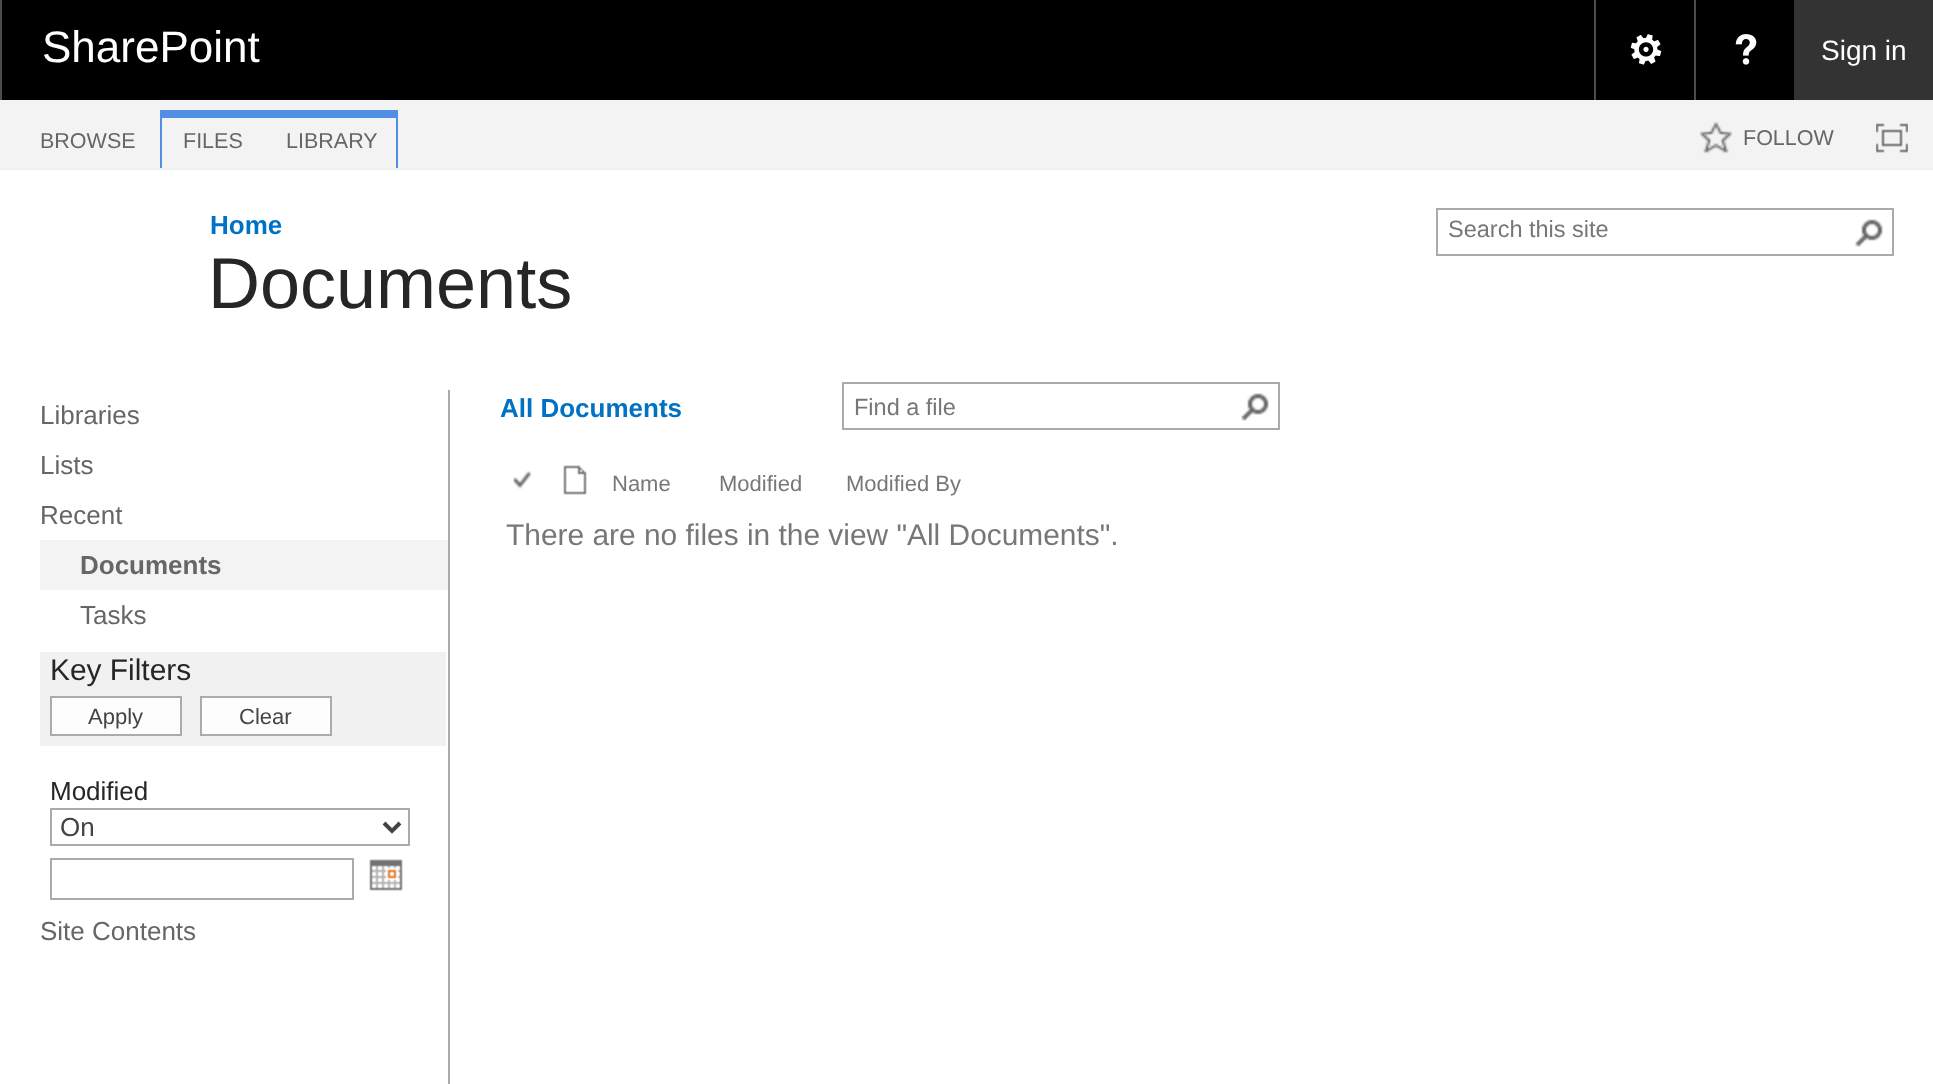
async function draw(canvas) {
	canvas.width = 1933;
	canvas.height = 1084;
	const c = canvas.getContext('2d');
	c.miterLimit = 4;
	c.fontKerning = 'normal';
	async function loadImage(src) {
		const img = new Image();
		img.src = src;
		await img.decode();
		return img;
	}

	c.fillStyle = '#fff';
	c.fillRect(0, 0, 1933, 1084);
	c.fillStyle = '#000';
	c.fillRect(2, 0, 1792, 100);
	c.fillStyle = '#4d4d4d';
	c.fillRect(0, 0, 2, 100);
	c.font = '44px Liberation Sans';
	c.fillStyle = '#fff';
	c.fillText('SharePoint', 42, 62);
	c.fillStyle = '#4d4d4d';
	c.fillRect(1594, 0, 2, 100);
	c.drawImage(await loadImage('img1.png'), 1630, 34, 32, 31);
	c.fillRect(1694, 0, 2, 100);
	c.drawImage(await loadImage('img2.png'), 1735, 34, 22, 31);
	c.fillStyle = '#333';
	c.fillRect(1794, 0, 139, 100);
	c.font = '28px Liberation Sans';
	c.fillStyle = '#fff';
	c.fillText('Sign in', 1821, 60);
	c.fillStyle = '#f3f3f3';
	c.fillRect(0, 100, 1933, 68);
	c.fillStyle = '#f0f0f0';
	c.fillRect(0, 168, 1933, 2);
	c.font = '21.5px Liberation Sans';
	c.fillStyle = '#666';
	c.fillText('BROWSE', 40, 148);
	c.fillStyle = '#508ee6';
	c.fillRect(160, 110, 238, 8);
	c.fillRect(160, 118, 2, 50);
	c.fillStyle = '#666';
	c.fillText('FILES', 183, 148);
	c.fillStyle = '#508ee6';
	c.fillRect(396, 118, 2, 50);
	c.fillStyle = '#666';
	c.fillText('LIBRARY', 286, 148);
	c.drawImage(await loadImage('img3.png'), 1700, 122, 32, 32);
	c.fillText('FOLLOW', 1743, 145);
	c.drawImage(await loadImage('img4.png'), 1876, 123, 32, 30);
	c.font = 'bold 26px Liberation Sans';
	c.fillStyle = '#0072c6';
	c.fillText('Home', 210, 234);
	c.font = '72px Liberation Sans';
	c.fillStyle = '#262626';
	c.fillText('Documents', 208, 308);
	c.strokeStyle = '#ababab';
	c.lineWidth = 2;
	c.strokeRect(1437, 209, 456, 46);
	c.font = '23.5px Liberation Sans';
	c.fillStyle = '#777';
	c.fillText('Search this site', 1448, 237);
	c.drawImage(await loadImage('img5.png'), 1855, 219, 28, 28);
	c.font = '26px Liberation Sans';
	c.fillStyle = '#666';
	for (const [text, x, y] of [
		['Libraries', 40, 424],
		['Lists', 40, 474],
		['Recent', 40, 524],
	]) {
		c.fillText(text, x, y);
	}
	c.fillStyle = '#f3f3f3';
	c.fillRect(40, 540, 408, 50);
	c.font = 'bold 26px Liberation Sans';
	c.fillStyle = '#666';
	c.fillText('Documents', 80, 574);
	c.font = '26px Liberation Sans';
	c.fillText('Tasks', 80, 624);
	c.fillStyle = '#f1f1f1';
	c.fillRect(40, 652, 406, 94);
	c.font = '29.9px Liberation Sans';
	c.fillStyle = '#262626';
	c.fillText('Key Filters', 50, 680);
	c.fillStyle = '#fdfdfd';
	c.beginPath();
	c.rect(51, 697, 130, 38);
	c.fill();
	c.stroke();
	c.font = '22px Liberation Sans';
	c.fillStyle = '#444';
	c.fillText('Apply', 88, 724);
	c.fillStyle = '#fdfdfd';
	c.beginPath();
	c.rect(201, 697, 130, 38);
	c.fill();
	c.stroke();
	c.fillStyle = '#444';
	c.fillText('Clear', 239, 724);
	c.font = '26px Liberation Sans';
	c.fillStyle = '#262626';
	c.fillText('Modified', 50, 800);
	c.strokeRect(51, 809, 358, 36);
	c.beginPath();
	c.moveTo(384, 823);
	c.lineTo(392, 831);
	c.lineTo(400, 823);
	c.strokeStyle = '#444';
	c.lineWidth = 4;
	c.stroke();
	c.fillStyle = '#444';
	c.fillText('On', 60, 836);
	c.strokeStyle = '#ababab';
	c.lineWidth = 2;
	c.strokeRect(51, 859, 302, 40);
	c.drawImage(await loadImage('img6.png'), 369, 859, 34, 32);
	c.fillStyle = '#666';
	c.fillText('Site Contents', 40, 940);
	c.fillStyle = '#ababab';
	c.fillRect(448, 390, 2, 694);
	c.font = 'bold 26px Liberation Sans';
	c.fillStyle = '#0072c6';
	c.fillText('All Documents', 500, 417);
	c.strokeRect(843, 383, 436, 46);
	c.font = '23.5px Liberation Sans';
	c.fillStyle = '#777';
	c.fillText('Find a file', 854, 415);
	c.drawImage(await loadImage('img5.png'), 1241, 393, 28, 28);
	c.drawImage(await loadImage('img7.png'), 513, 471, 19, 18);
	c.drawImage(await loadImage('img8.png'), 563, 465, 24, 30);
	c.font = '22px Liberation Sans';
	for (const [text, x, y] of [
		['Name', 612, 491],
		['Modified', 719, 491],
		['Modified By', 846, 491],
	]) {
		c.fillText(text, x, y);
	}
	c.font = '29.9px Liberation Sans';
	c.fillText('There are no files in the view "All Documents".', 506, 545);
}

draw(document.querySelector('canvas'));
